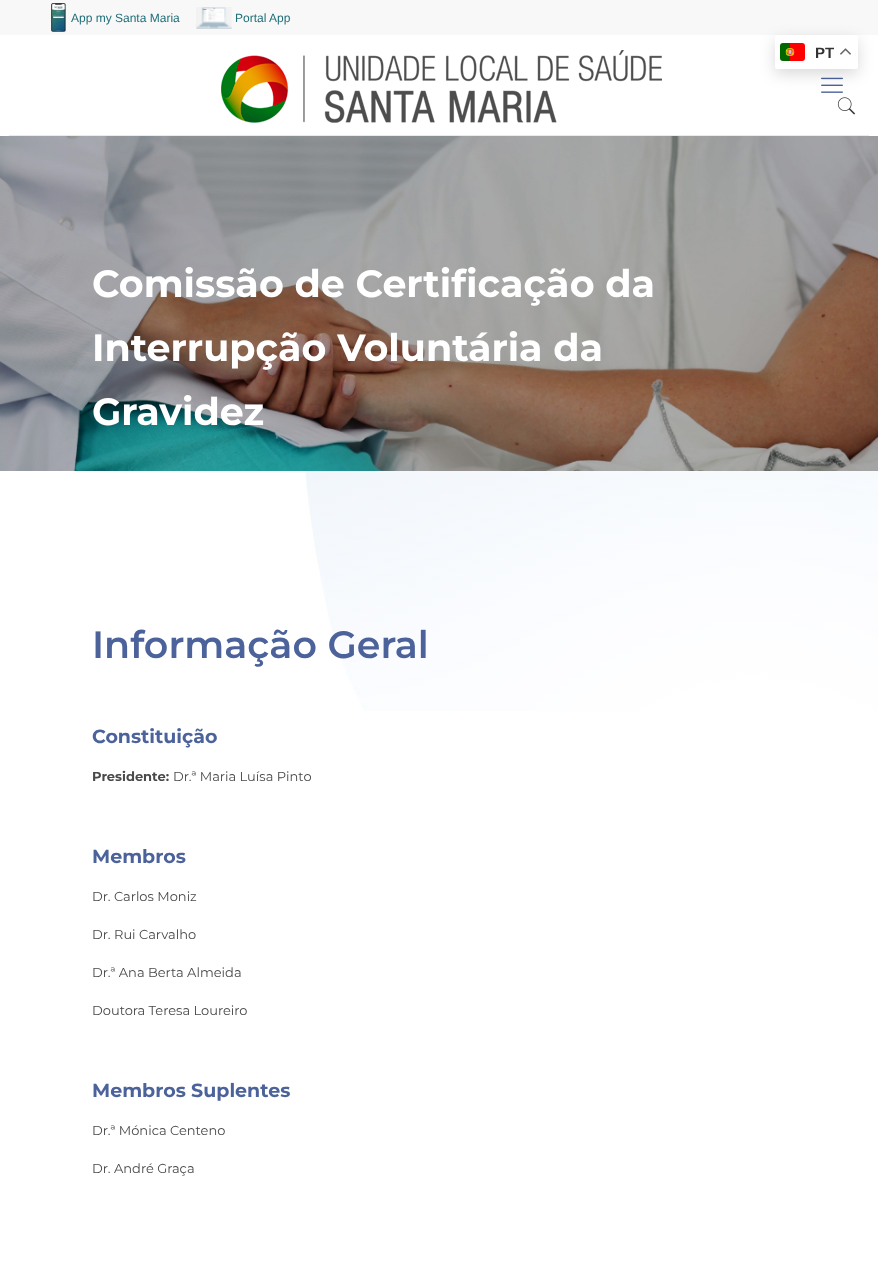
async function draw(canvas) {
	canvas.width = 878;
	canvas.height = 1261;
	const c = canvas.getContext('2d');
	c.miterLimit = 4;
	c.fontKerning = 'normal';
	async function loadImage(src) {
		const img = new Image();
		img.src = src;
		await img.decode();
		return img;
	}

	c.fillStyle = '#fff';
	c.fillRect(0, 0, 878, 1261);
	c.fillStyle = '#f8f8f8';
	c.fillRect(0, 0, 878, 35);
	c.drawImage(await loadImage('img1.png'), 51, 3, 15, 29);
	c.font = '12px Liberation Sans';
	c.fillStyle = '#206f79';
	c.fillText('App my Santa Maria', 71, 22);
	c.drawImage(await loadImage('img2.png'), 196, 7, 36, 22);
	c.fillText('Portal App', 235, 22);
	c.drawImage(await loadImage('img6.png'), 821, 77, 22, 16);
	c.drawImage(await loadImage('img7.png'), 837, 97, 19, 18);
	c.fillStyle = '#00000026';
	c.filter = 'blur(7.5px)';
	c.beginPath();
	c.roundRect(775, 40, 83, 34, 2);
	c.fill();
	c.filter = 'none';
	c.fillStyle = '#fff';
	c.beginPath();
	c.roundRect(775, 35, 83, 34, 2);
	c.fill();
	c.drawImage(await loadImage('img3.png'), 780, 43, 25, 18);
	c.font = 'bold 15px Liberation Sans';
	c.fillStyle = '#333';
	c.fillText('PT', 815, 58);
	c.drawImage(await loadImage('img4.png'), 840, 48, 11, 7);
	c.fillStyle = '#ebebeb';
	c.fillRect(9, 135, 860, 1);
	c.drawImage(await loadImage('img5.png'), 221, 50, 441, 73);
	c.drawImage(await loadImage('img8.png'), 0, 136, 878, 335);
	c.font = 'bold 38px Montserrat';
	c.fillStyle = '#fff';
	for (const [text, x, y] of [
		['Comissão de Certificação da', 92, 297],
		['Interrupção Voluntária da', 92, 361],
		['Gravidez', 92, 425],
	]) {
		c.fillText(text, x, y);
	}
	c.drawImage(await loadImage('img9.png'), 305, 471, 573, 240);
	c.font = '600 38px Montserrat';
	c.fillStyle = '#4c629b';
	c.fillText('Informação Geral', 92, 658);
	c.font = 'bold 19px Montserrat';
	c.fillText('Constituição', 92, 743);
	c.font = 'bold 13px Montserrat';
	c.fillStyle = '#494949';
	c.fillText('Presidente:', 92, 781);
	c.font = '100 13px Montserrat';
	c.fillText('Dr.ª Maria Luísa Pinto', 173, 781);
	c.font = 'bold 19px Montserrat';
	c.fillStyle = '#4c629b';
	c.fillText('Membros', 92, 863);
	c.font = '100 13px Montserrat';
	c.fillStyle = '#494949';
	for (const [text, x, y] of [
		['Dr. Carlos Moniz', 92, 901],
		['Dr. Rui Carvalho', 92, 939],
		['Dr.ª Ana Berta Almeida', 92, 977],
		['Doutora Teresa Loureiro', 92, 1015],
	]) {
		c.fillText(text, x, y);
	}
	c.font = 'bold 19px Montserrat';
	c.fillStyle = '#4c629b';
	c.fillText('Membros Suplentes', 92, 1097);
	c.font = '100 13px Montserrat';
	c.fillStyle = '#494949';
	c.fillText('Dr.ª Mónica Centeno', 92, 1135);
	c.fillText('Dr. André Graça', 92, 1173);
}

draw(document.querySelector('canvas'));
